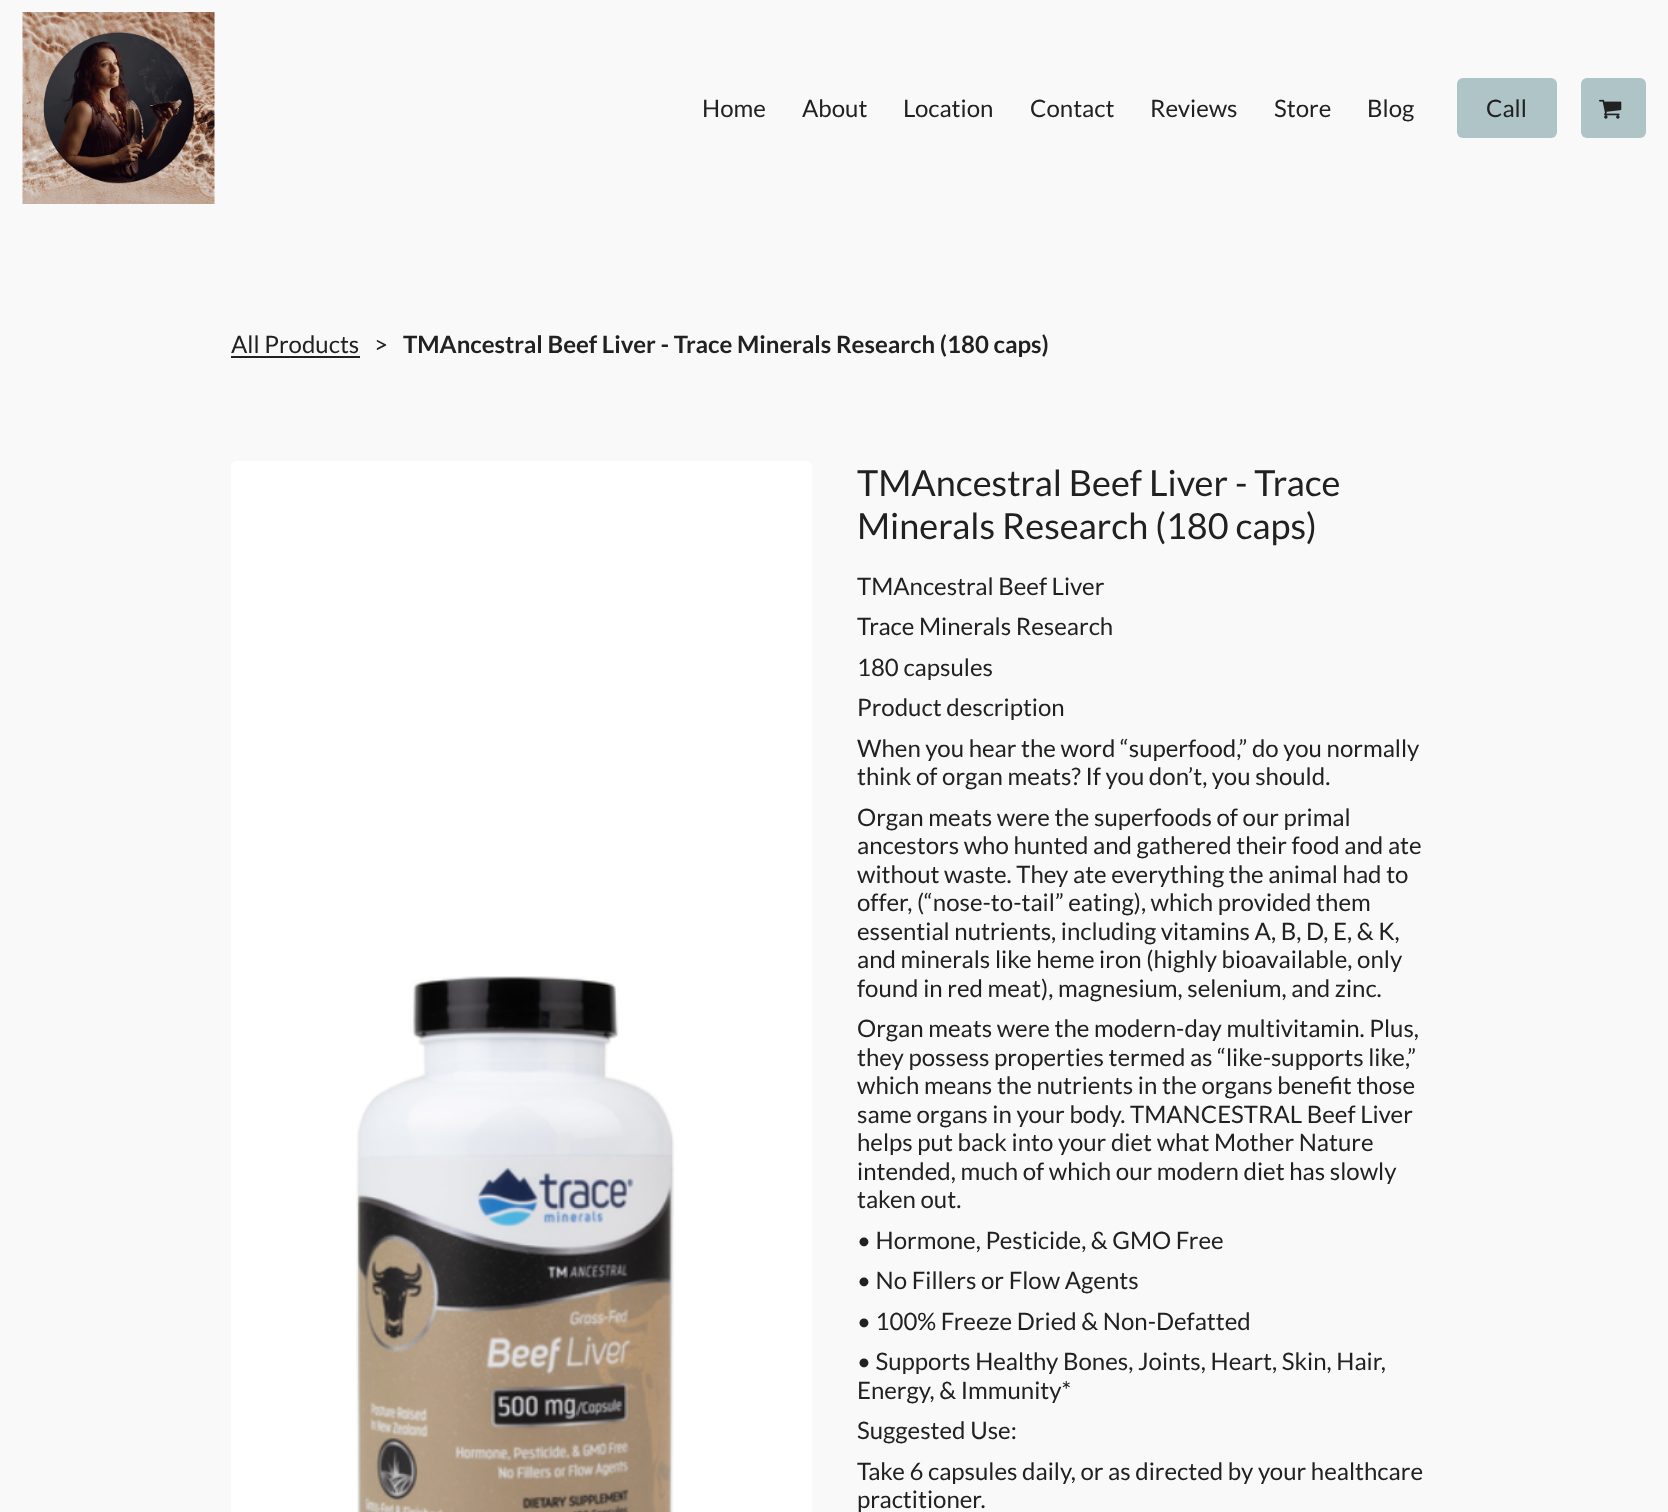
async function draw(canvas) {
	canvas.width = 1668;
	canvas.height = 1512;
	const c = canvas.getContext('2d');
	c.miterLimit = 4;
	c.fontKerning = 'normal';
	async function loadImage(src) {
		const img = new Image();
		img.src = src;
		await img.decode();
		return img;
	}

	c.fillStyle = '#f9f9f9';
	c.fillRect(0, 0, 1668, 1512);
	c.drawImage(await loadImage('img1.png'), 22, 12, 193, 192);
	c.font = '24px Lato';
	c.fillStyle = '#212121';
	for (const [text, x, y] of [
		['Home', 702, 117],
		['About', 802, 117],
		['Location', 903, 117],
		['Contact', 1030, 117],
		['Reviews', 1150, 117],
		['Store', 1274, 117],
		['Blog', 1367, 117],
	]) {
		c.fillText(text, x, y);
	}
	c.fillStyle = '#aec4c7';
	c.beginPath();
	c.roundRect(1457, 78, 100, 60, 6);
	c.fill();
	c.fillStyle = '#212121';
	c.fillText('Call', 1486, 117);
	c.fillStyle = '#aec4c7';
	c.beginPath();
	c.roundRect(1581, 78, 65, 60, 6);
	c.fill();
	c.drawImage(await loadImage('img2.png'), 1599, 99, 23, 20);
	c.fillStyle = '#212121';
	c.fillText('All Products', 231, 353);
	c.fillRect(231, 356, 129, 2);
	c.fillText('>', 374, 353);
	c.font = 'bold 24px Lato';
	c.fillText('TMAncestral Beef Liver - Trace Minerals Research (180 caps)', 403, 353);
	c.fillStyle = '#fff';
	c.beginPath();
	c.roundRect(231, 461, 581, 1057, 6);
	c.fill();
	c.drawImage(await loadImage('img3.png'), 356, 976, 319, 536);
	c.font = '36px Lato';
	c.fillStyle = '#212121';
	c.fillText('TMAncestral Beef Liver - Trace', 857, 496);
	c.fillText('Minerals Research (180 caps)', 857, 539);
	c.font = '24px Lato';
	for (const [text, x, y] of [
		['TMAncestral Beef Liver', 857, 595],
		['Trace Minerals Research', 857, 635],
		['180 capsules', 857, 676],
		['Product description', 857, 716],
		['When you hear the word “superfood,” do you normally', 857, 757],
		['think of organ meats? If you don’t, you should.', 857, 785],
		['Organ meats were the superfoods of our primal', 857, 826],
		['ancestors who hunted and gathered their food and ate', 857, 854],
		['without waste. They ate everything the animal had to', 857, 883],
		['offer, (“nose-to-tail” eating), which provided them', 857, 911],
		['essential nutrients, including vitamins A, B, D, E, & K,', 857, 940],
		['and minerals like heme iron (highly bioavailable, only', 857, 968],
		['found in red meat), magnesium, selenium, and zinc.', 857, 997],
		['Organ meats were the modern-day multivitamin. Plus,', 857, 1037],
		['they possess properties termed as “like-supports like,”', 857, 1066],
		['which means the nutrients in the organs benefit those', 857, 1094],
		['same organs in your body. TMANCESTRAL Beef Liver', 857, 1123],
		['helps put back into your diet what Mother Nature', 857, 1151],
		['intended, much of which our modern diet has slowly', 857, 1180],
		['taken out.', 857, 1208],
		['• Hormone, Pesticide, & GMO Free', 857, 1249],
		['• No Fillers or Flow Agents', 857, 1289],
		['• 100% Freeze Dried & Non-Defatted', 857, 1330],
		['• Supports Healthy Bones, Joints, Heart, Skin, Hair,', 857, 1370],
		['Energy, & Immunity*', 857, 1399],
		['Suggested Use:', 857, 1439],
		['Take 6 capsules daily, or as directed by your healthcare', 857, 1480],
		['practitioner.', 857, 1508],
	]) {
		c.fillText(text, x, y);
	}
}

draw(document.querySelector('canvas'));
